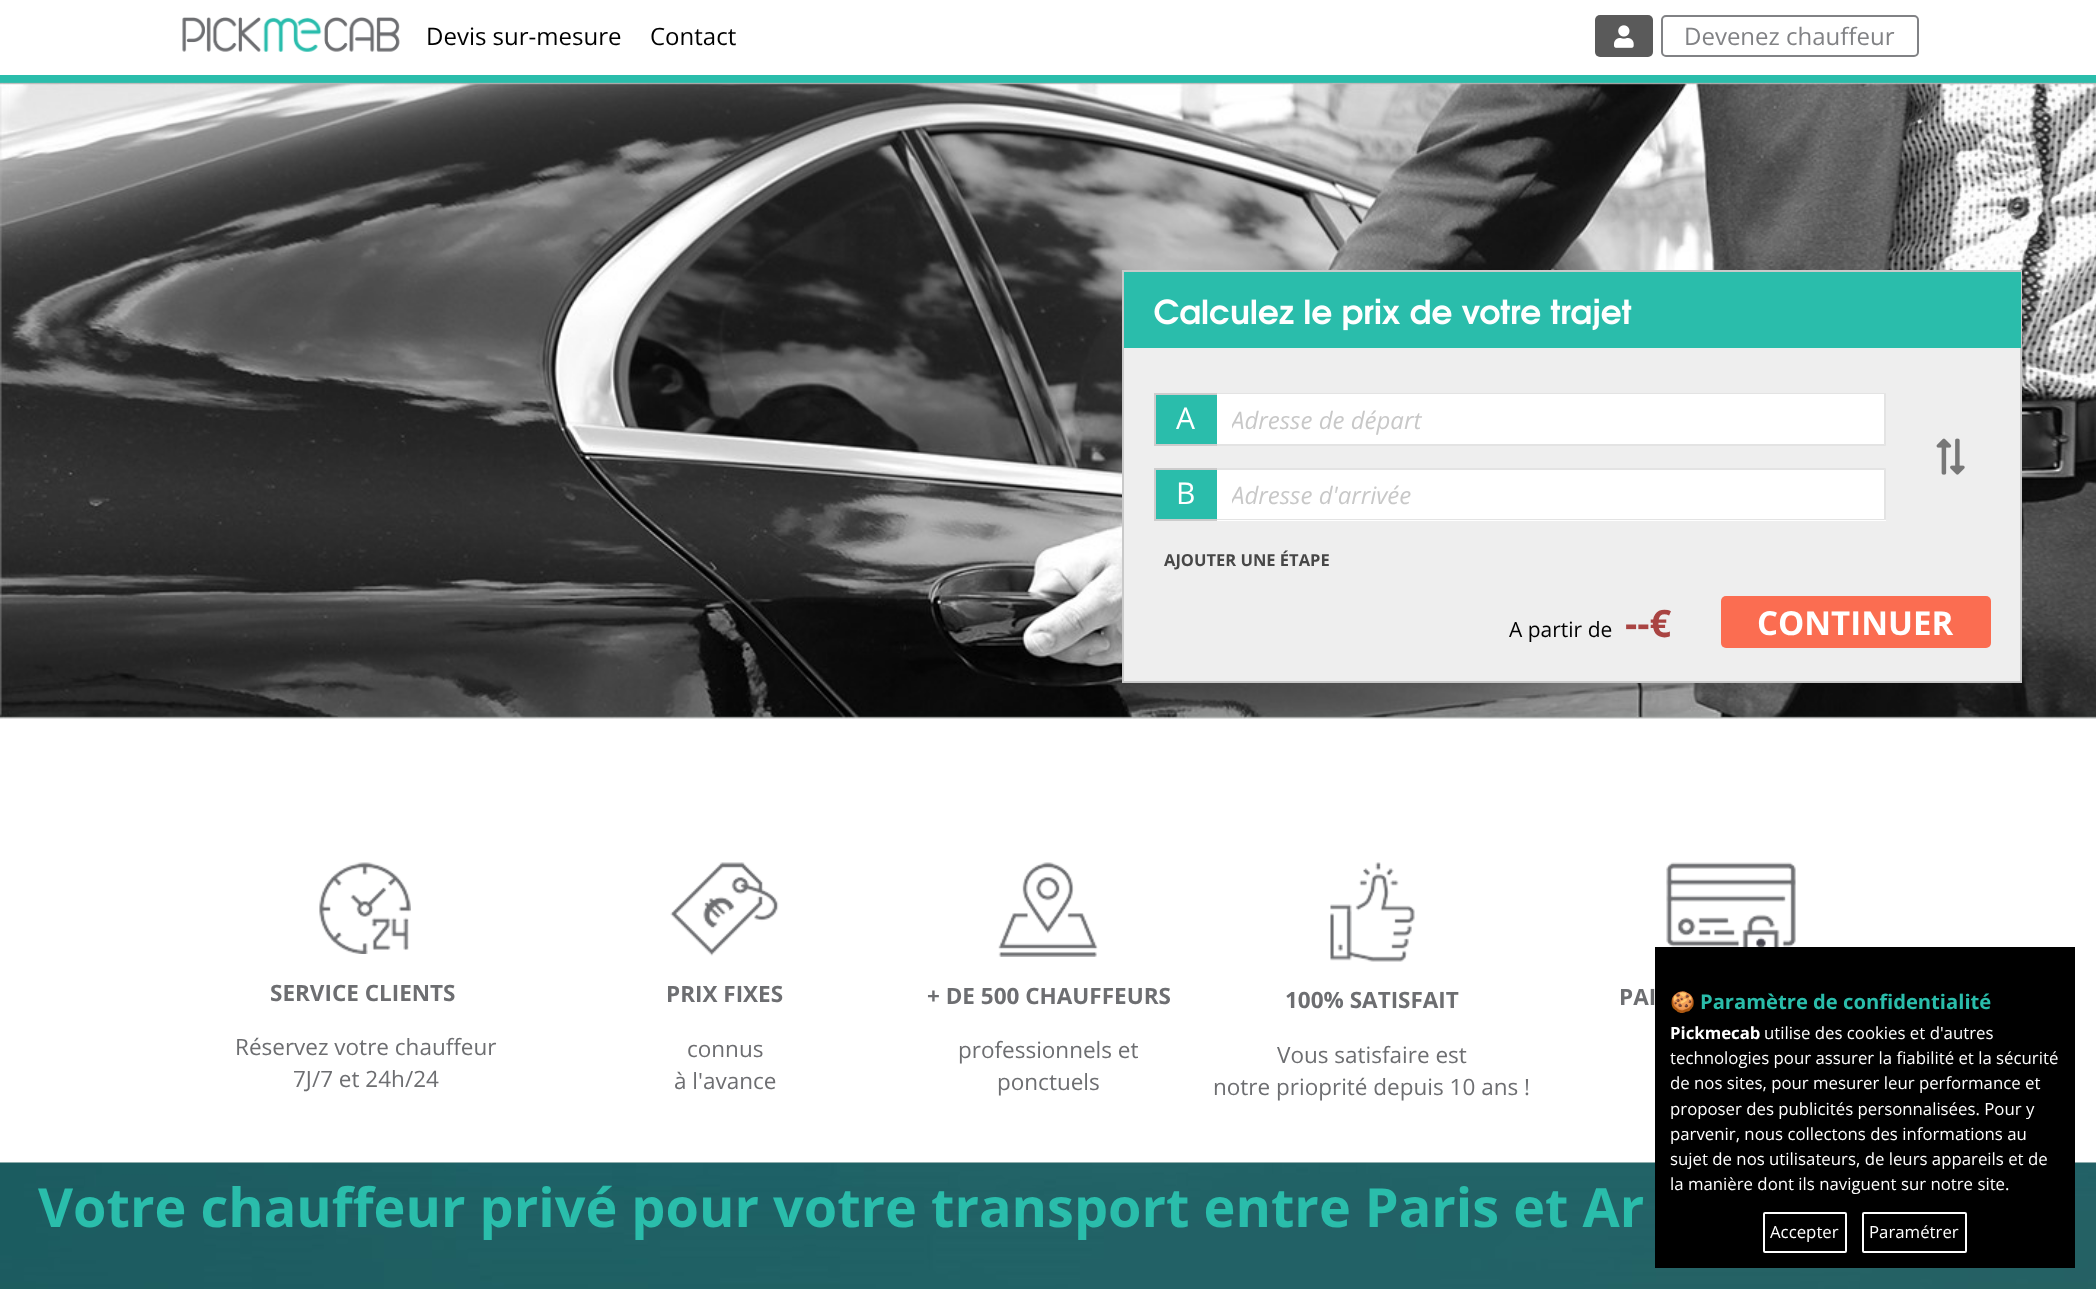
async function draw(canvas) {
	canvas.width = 2096;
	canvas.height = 1289;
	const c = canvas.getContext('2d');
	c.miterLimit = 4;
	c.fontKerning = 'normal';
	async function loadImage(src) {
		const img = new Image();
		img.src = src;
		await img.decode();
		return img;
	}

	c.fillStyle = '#fff';
	c.fillRect(0, 0, 2096, 1289);
	c.fillStyle = '#2abdab';
	c.fillRect(0, 75, 2096, 8);
	c.drawImage(await loadImage('img1.png'), 182, 17, 218, 35);
	c.font = '24px Open Sans';
	c.fillStyle = '#000';
	c.fillText('Devis sur-mesure', 426, 45);
	c.fillText('Contact', 650, 45);
	c.fillStyle = '#5a5a5a';
	c.beginPath();
	c.roundRect(1595, 15, 58, 42, 5);
	c.fill();
	c.drawImage(await loadImage('img2.png'), 1614, 25, 20, 23);
	c.beginPath();
	c.roundRect(1662, 16, 256, 40, 4);
	c.strokeStyle = '#818285';
	c.lineWidth = 2;
	c.stroke();
	c.fillStyle = '#818285';
	c.fillText('Devenez chauffeur', 1684, 45);
	c.drawImage(await loadImage('img3.png'), 0, 82, 2096, 637);
	c.fillStyle = '#eee';
	c.fillRect(1124, 348, 896, 333);
	c.strokeStyle = '#c9c9c9';
	c.strokeRect(1123, 271, 898, 411);
	c.fillStyle = '#2abdab';
	c.fillRect(1124, 272, 897, 76);
	c.drawImage(await loadImage('img4.png'), 1154, 298, 478, 33);
	c.fillRect(1156, 395, 61, 49);
	c.font = '30px Open Sans';
	c.fillStyle = '#fff';
	c.fillText('A', 1176, 429);
	for (const [x, y, w, h, color] of [
		[1154, 393, 63, 2, '#ccc'],
		[1154, 444, 63, 2, '#ccc'],
		[1154, 393, 2, 53, '#ccc'],
		[1217, 393, 669, 53, '#fff'],
	]) {
		c.fillStyle = color;
		c.fillRect(x, y, w, h);
	}
	c.fillStyle = '#c8c8c880';
	c.beginPath();
	c.moveTo(1216, 393);
	c.lineTo(1886, 393);
	c.lineTo(1884, 394);
	c.lineTo(1216, 394);
	c.closePath();
	c.fill();
	c.beginPath();
	c.moveTo(1886, 393);
	c.lineTo(1886, 446);
	c.lineTo(1884, 444);
	c.lineTo(1884, 394);
	c.closePath();
	c.fill();
	c.beginPath();
	c.moveTo(1886, 446);
	c.lineTo(1216, 446);
	c.lineTo(1216, 444);
	c.lineTo(1884, 444);
	c.closePath();
	c.fill();
	c.save();
	c.beginPath();
	c.rect(1232, 404, 652, 33);
	c.clip();
	c.font = 'italic 24px Open Sans';
	c.fillStyle = '#c8c8c8';
	c.fillText('Adresse de départ', 1231, 429);
	c.restore();
	c.drawImage(await loadImage('img5.png'), 1936, 438, 29, 37);
	c.fillStyle = '#2abdab';
	c.fillRect(1156, 470, 61, 49);
	c.fillStyle = '#fff';
	c.fillText('B', 1176, 504);
	for (const [x, y, w, h, color] of [
		[1154, 468, 63, 2, '#ccc'],
		[1154, 519, 63, 2, '#ccc'],
		[1154, 468, 2, 53, '#ccc'],
		[1217, 468, 669, 53, '#fff'],
	]) {
		c.fillStyle = color;
		c.fillRect(x, y, w, h);
	}
	c.fillStyle = '#c8c8c880';
	c.beginPath();
	c.moveTo(1216, 468);
	c.lineTo(1886, 468);
	c.lineTo(1884, 470);
	c.lineTo(1216, 470);
	c.closePath();
	c.fill();
	c.beginPath();
	c.moveTo(1886, 468);
	c.lineTo(1886, 520);
	c.lineTo(1884, 519);
	c.lineTo(1884, 470);
	c.closePath();
	c.fill();
	c.beginPath();
	c.moveTo(1886, 520);
	c.lineTo(1216, 520);
	c.lineTo(1216, 519);
	c.lineTo(1884, 519);
	c.closePath();
	c.fill();
	c.save();
	c.beginPath();
	c.rect(1232, 479, 652, 33);
	c.clip();
	c.font = 'italic 24px Open Sans';
	c.fillStyle = '#c8c8c8';
	c.fillText('Adresse d\'arrivée', 1231, 504);
	c.restore();
	c.font = 'bold 16.5px Open Sans';
	c.fillStyle = '#474747';
	c.fillText('AJOUTER UNE ÉTAPE', 1164, 566);
	c.font = '21px Open Sans';
	c.fillStyle = '#000';
	c.fillText('A partir de', 1509, 637);
	c.font = 'bold 38px Open Sans';
	c.fillStyle = '#a94442';
	c.fillText('--€', 1625, 637);
	c.fillStyle = '#fb6d51';
	c.beginPath();
	c.roundRect(1721, 596, 270, 52, 5);
	c.fill();
	c.font = 'bold 33px Open Sans';
	c.fillStyle = '#fff';
	c.fillText('CONTINUER', 1757, 635);
	c.drawImage(await loadImage('img6.png'), 319, 862, 92, 92);
	c.font = 'bold 22.5px Open Sans';
	c.fillStyle = '#6d6e71';
	c.fillText('SERVICE CLIENTS', 270, 1001);
	c.font = '22.5px Open Sans';
	c.fillText('Réservez votre chauffeur', 235, 1055);
	c.fillText('7J/7 et 24h/24', 293, 1087);
	c.drawImage(await loadImage('img7.png'), 670, 862, 109, 94);
	c.font = 'bold 22.5px Open Sans';
	c.fillText('PRIX FIXES', 666, 1002);
	c.font = '22.5px Open Sans';
	c.fillText('connus', 687, 1057);
	c.fillText('à l\'avance', 674, 1089);
	c.drawImage(await loadImage('img8.png'), 998, 862, 100, 95);
	c.font = 'bold 22.5px Open Sans';
	c.fillText('+ DE 500 CHAUFFEURS', 927, 1004);
	c.font = '22.5px Open Sans';
	c.fillText('professionnels et', 958, 1058);
	c.fillText('ponctuels', 997, 1090);
	c.drawImage(await loadImage('img9.png'), 1330, 862, 85, 100);
	c.font = 'bold 22.5px Open Sans';
	c.fillText('100% SATISFAIT', 1285, 1008);
	c.font = '22.5px Open Sans';
	c.fillText('Vous satisfaire est', 1277, 1063);
	c.fillText('notre prioprité depuis 10 ans !', 1213, 1095);
	c.drawImage(await loadImage('img10.png'), 1666, 862, 130, 85);
	c.font = 'bold 22.5px Open Sans';
	c.fillText('PAI', 1619, 1005);
	c.drawImage(await loadImage('img11.png'), 0, 1162, 2096, 127);
	c.font = 'bold 54px Open Sans';
	c.fillStyle = '#2abdab';
	c.fillText('Votre chauffeur privé pour votre transport entre Paris et Ar', 38, 1227);
	c.fillStyle = '#000';
	c.fillRect(1655, 947, 420, 321);
	c.font = 'bold 20.2px Noto Color Emoji';
	c.fillStyle = '#2abdab';
	c.fillText('🍪', 1670, 1009);
	c.font = 'bold 20.2px Open Sans';
	c.fillText('Paramètre de confidentialité', 1700, 1009);
	c.font = 'bold 16.8px Open Sans';
	c.fillStyle = '#fff';
	c.fillText('Pickmecab', 1670, 1039);
	c.font = '16.8px Open Sans';
	for (const [text, x, y] of [
		['utilise des cookies et d\'autres', 1764, 1039],
		['technologies pour assurer la fiabilité et la sécurité', 1670, 1064],
		['de nos sites, pour mesurer leur performance et', 1670, 1089],
		['proposer des publicités personnalisées. Pour y', 1670, 1115],
		['parvenir, nous collectons des informations au', 1670, 1140],
		['sujet de nos utilisateurs, de leurs appareils et de', 1670, 1165],
		['la manière dont ils naviguent sur notre site.', 1670, 1190],
	]) {
		c.fillText(text, x, y);
	}
	c.beginPath();
	c.roundRect(1764, 1213, 82, 39, 1);
	c.strokeStyle = '#fff';
	c.stroke();
	c.fillText('Accepter', 1770, 1238);
	c.beginPath();
	c.roundRect(1863, 1213, 103, 39, 1);
	c.stroke();
	c.fillText('Paramétrer', 1869, 1238);
}

draw(document.querySelector('canvas'));
